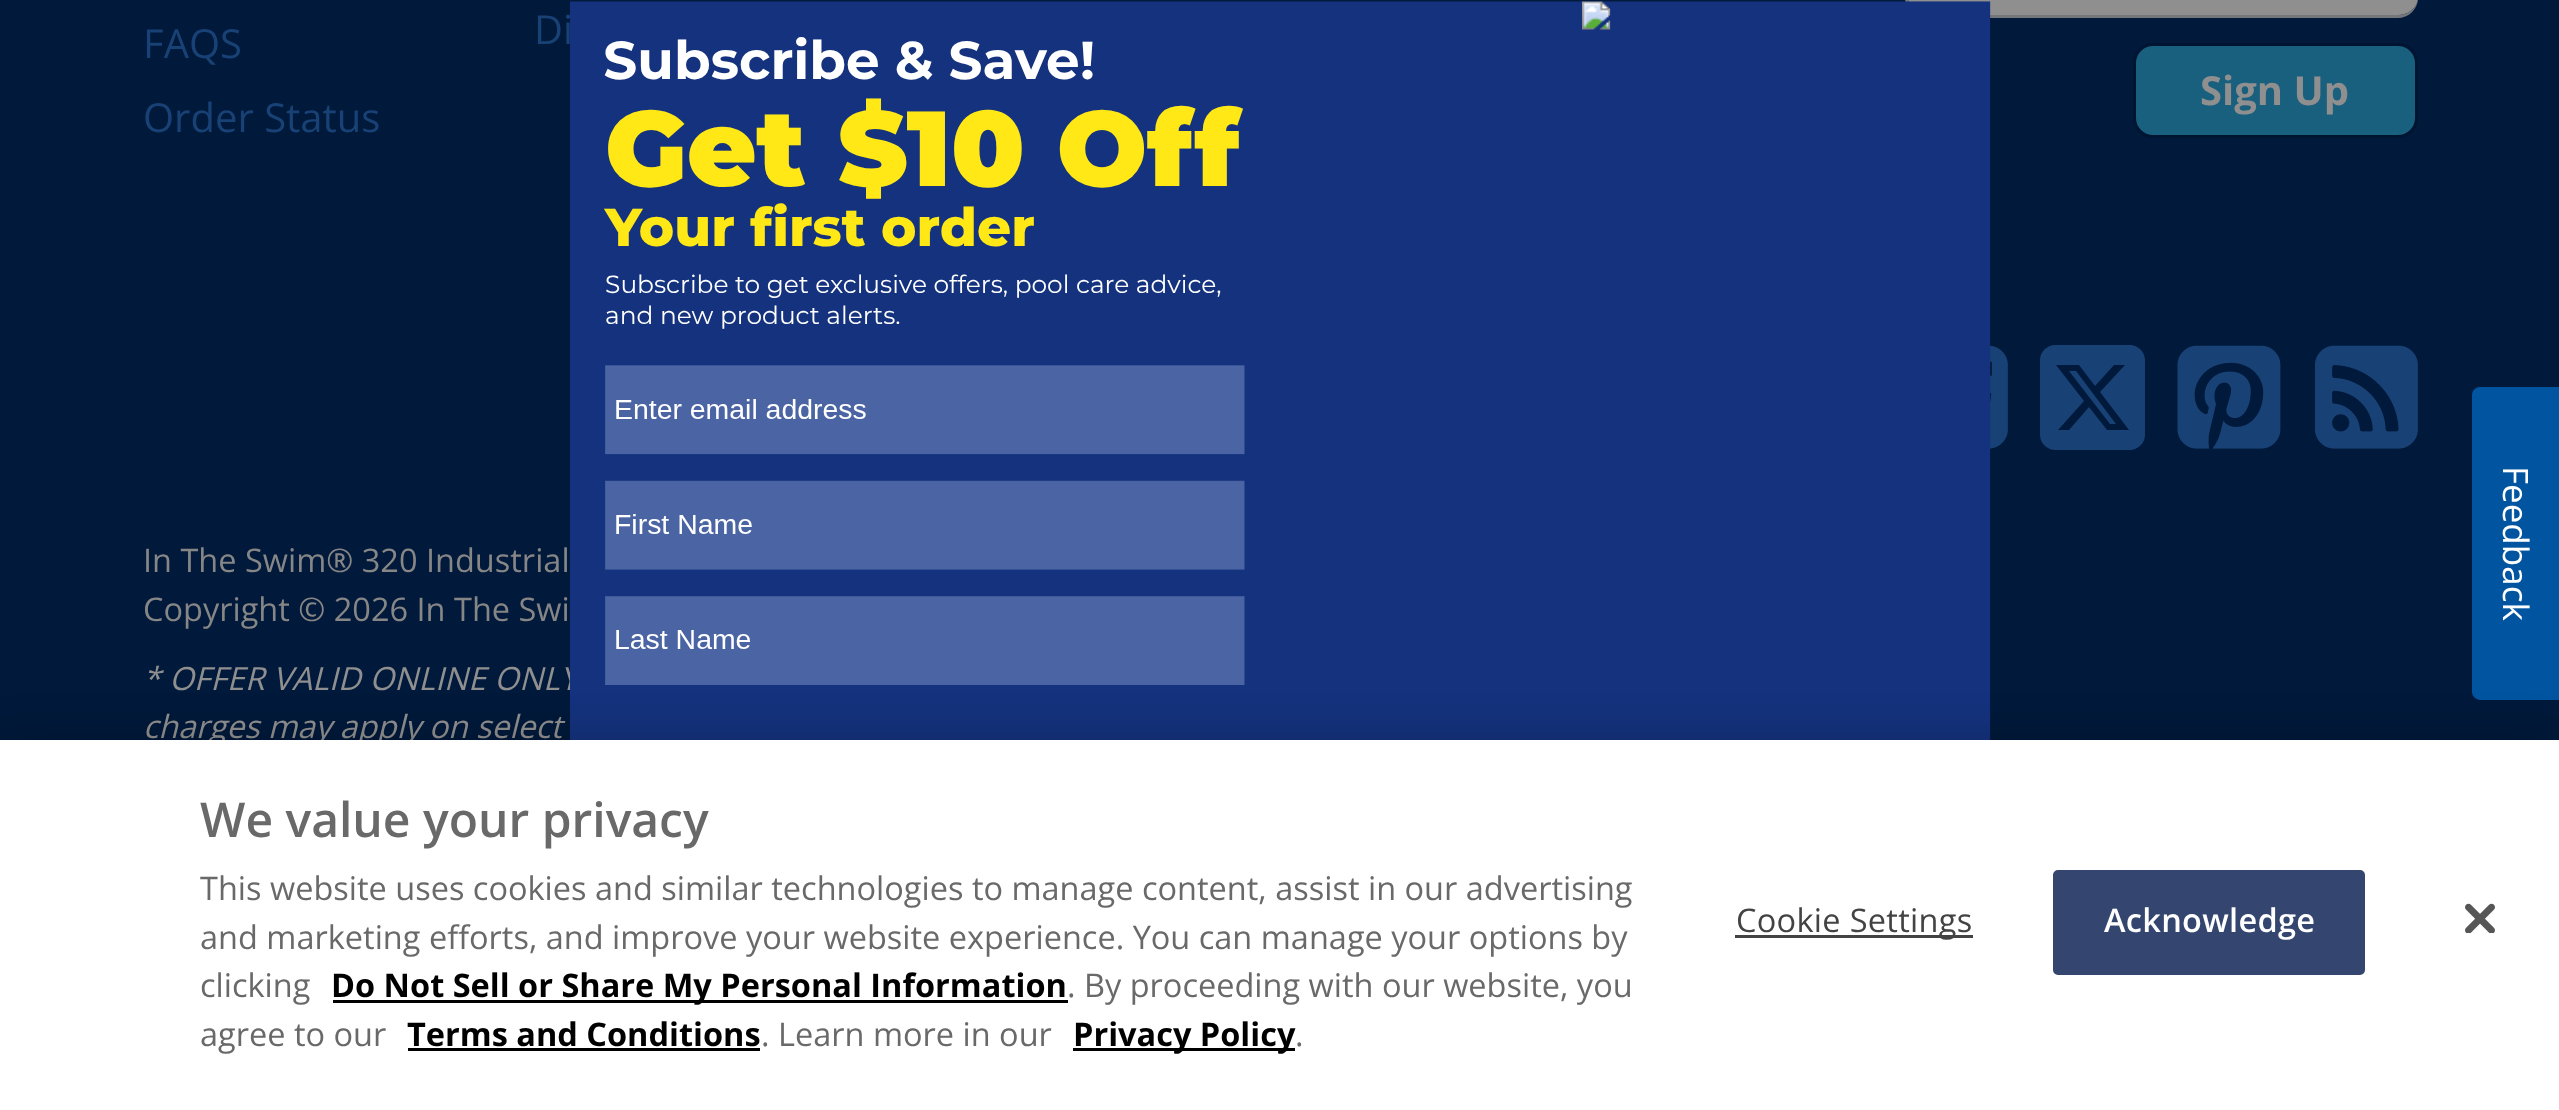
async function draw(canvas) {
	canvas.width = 2559;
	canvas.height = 1110;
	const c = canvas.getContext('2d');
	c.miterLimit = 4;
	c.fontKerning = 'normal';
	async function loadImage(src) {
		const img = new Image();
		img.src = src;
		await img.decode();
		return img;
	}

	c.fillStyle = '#01193a';
	c.fillRect(0, 0, 2559, 1110);
	c.font = '40px Open Sans';
	c.fillStyle = '#184276';
	c.fillText('Di', 534, 44);
	c.fillStyle = '#8f8f8f';
	c.beginPath();
	c.moveTo(1925, -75);
	c.lineTo(2398, -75);
	c.bezierCurveTo(2409, -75, 2418, -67, 2418, -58);
	c.lineTo(2418, -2);
	c.bezierCurveTo(2418, 7, 2409, 15, 2398, 15);
	c.lineTo(1925, 15);
	c.bezierCurveTo(1915, 15, 1908, 7, 1908, -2);
	c.lineTo(1908, -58);
	c.bezierCurveTo(1908, -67, 1915, -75, 1925, -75);
	c.closePath();
	c.fill();
	c.fillStyle = '#73777a';
	c.beginPath();
	c.moveTo(1925, -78);
	c.lineTo(2398, -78);
	c.bezierCurveTo(2409, -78, 2418, -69, 2418, -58);
	c.lineTo(2418, -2);
	c.bezierCurveTo(2418, 9, 2409, 18, 2398, 18);
	c.lineTo(1925, 18);
	c.bezierCurveTo(1914, 18, 1905, 9, 1905, -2);
	c.lineTo(1905, -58);
	c.bezierCurveTo(1905, -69, 1914, -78, 1925, -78);
	c.closePath();
	c.moveTo(1925, -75);
	c.lineTo(2398, -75);
	c.bezierCurveTo(2409, -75, 2418, -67, 2418, -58);
	c.lineTo(2418, -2);
	c.bezierCurveTo(2418, 7, 2409, 15, 2398, 15);
	c.lineTo(1925, 15);
	c.bezierCurveTo(1915, 15, 1908, 7, 1908, -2);
	c.lineTo(1908, -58);
	c.bezierCurveTo(1908, -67, 1915, -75, 1925, -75);
	c.closePath();
	c.fill('evenodd');
	c.drawImage(await loadImage('img2.png'), 1990, 345, 18, 104);
	c.font = 'italic 32px Open Sans';
	c.fillStyle = '#8f8f8f';
	c.fillText('* OFFER VALID ONLINE ONLY', 143, 690);
	c.drawImage(await loadImage('img1.png'), 570, 1, 1421, 739);
	c.font = '40px Open Sans';
	c.fillStyle = '#184276';
	c.fillText('FAQS', 143, 58);
	c.fillText('Order Status', 143, 132);
	c.fillStyle = '#195f7e';
	c.beginPath();
	c.roundRect(2134.5, 44.5, 282, 92, 18.5);
	c.fill();
	c.strokeStyle = '#001532';
	c.lineWidth = 3;
	c.stroke();
	c.font = 'bold 40px Open Sans';
	c.fillStyle = '#8f8f8f';
	c.fillText('Sign Up', 2200, 105);
	c.fillStyle = '#184276';
	c.beginPath();
	c.moveTo(2055, 345);
	c.bezierCurveTo(2047, 345, 2040, 352, 2040, 360);
	c.lineTo(2040, 435);
	c.bezierCurveTo(2040, 443, 2047, 450, 2055, 450);
	c.lineTo(2130, 450);
	c.bezierCurveTo(2138, 450, 2145, 443, 2145, 435);
	c.lineTo(2145, 360);
	c.bezierCurveTo(2145, 352, 2138, 345, 2130, 345);
	c.closePath();
	c.moveTo(2125, 365);
	c.lineTo(2100, 392);
	c.lineTo(2129, 430);
	c.lineTo(2107, 430);
	c.lineTo(2089, 407);
	c.lineTo(2069, 430);
	c.lineTo(2058, 430);
	c.lineTo(2084, 401);
	c.lineTo(2056, 365);
	c.lineTo(2079, 365);
	c.lineTo(2095, 386);
	c.lineTo(2114, 365);
	c.closePath();
	c.moveTo(2116, 424);
	c.lineTo(2076, 371);
	c.lineTo(2069, 371);
	c.lineTo(2110, 424);
	c.closePath();
	c.fill();
	c.drawImage(await loadImage('img3.png'), 2177, 345, 104, 104);
	c.drawImage(await loadImage('img4.png'), 2315, 345, 103, 104);
	c.font = '32.5px Open Sans';
	c.fillStyle = '#868686';
	c.fillText('In The Swim® 320 Industrial', 143, 572);
	c.fillText('Copyright © 2026 In The Swi', 143, 621);
	c.font = 'italic 32px Open Sans';
	c.fillStyle = '#8f8f8f';
	c.fillText('charges may apply on select', 143, 738);
	c.fillStyle = '#0154a0';
	c.beginPath();
	c.moveTo(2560, 387);
	c.lineTo(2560, 700);
	c.lineTo(2480, 700);
	c.bezierCurveTo(2476, 700, 2472, 696, 2472, 692);
	c.lineTo(2472, 395);
	c.bezierCurveTo(2472, 390, 2476, 387, 2480, 387);
	c.closePath();
	c.fill();
	c.font = '35px Open Sans';
	c.fillStyle = '#fff';
	c.save();
	c.translate(2503, 466);
	c.rotate(90 * Math.PI / 180);
	c.fillText('Feedback', 0, 0);
	c.restore();
	c.fillStyle = '#00000033';
	c.filter = 'blur(22.5px)';
	c.beginPath();
	c.rect(0, 740, 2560, 370);
	c.fill();
	c.filter = 'none';
	c.fillStyle = '#fff';
	c.fillRect(0, 740, 2559, 370);
	c.font = '600 48px Open Sans';
	c.fillStyle = '#696969';
	c.fillText('We value your privacy', 200, 837);
	c.font = '32.5px Open Sans';
	for (const [text, x, y] of [
		['This website uses cookies and similar technologies to manage content, assist in our advertising', 200, 900],
		['and marketing efforts, and improve your website experience. You can manage your options by', 200, 949],
		['clicking', 200, 997],
	]) {
		c.fillText(text, x, y);
	}
	c.fillStyle = '#000';
	c.fillRect(333, 1000, 735, 3);
	c.font = 'bold 32.5px Open Sans';
	c.fillText('Do Not Sell or Share My Personal Information', 331, 997);
	c.font = '32.5px Open Sans';
	c.fillStyle = '#696969';
	c.fillText('. By proceeding with our website, you', 1067, 997);
	c.fillText('agree to our', 200, 1046);
	c.font = 'bold 32.5px Open Sans';
	c.fillStyle = '#000';
	c.fillText('Terms and Conditions', 407, 1046);
	c.fillRect(408, 1048, 352, 3);
	c.font = '32.5px Open Sans';
	c.fillStyle = '#696969';
	c.fillText('. Learn more in our', 761, 1046);
	c.fillStyle = '#000';
	c.fillRect(1073, 1048, 222, 3);
	c.font = 'bold 32.5px Open Sans';
	c.fillText('Privacy Policy', 1073, 1046);
	c.font = '32.5px Open Sans';
	c.fillStyle = '#696969';
	c.fillText('.', 1295, 1046);
	c.fillStyle = '#434343';
	c.fillRect(1735, 935, 238, 3);
	c.letterSpacing = '0.3px';
	c.fillText('Cookie Settings', 1736, 932);
	c.fillStyle = '#34466f';
	c.beginPath();
	c.roundRect(2054.5, 871.5, 309, 102, 3.5);
	c.fill();
	c.strokeStyle = '#34466f';
	c.stroke();
	c.font = '600 32.5px Open Sans';
	c.fillStyle = '#fff';
	c.fillText('Acknowledge', 2104, 932);
	c.drawImage(await loadImage('img5.png'), 2465, 903, 30, 30);
}

draw(document.querySelector('canvas'));
